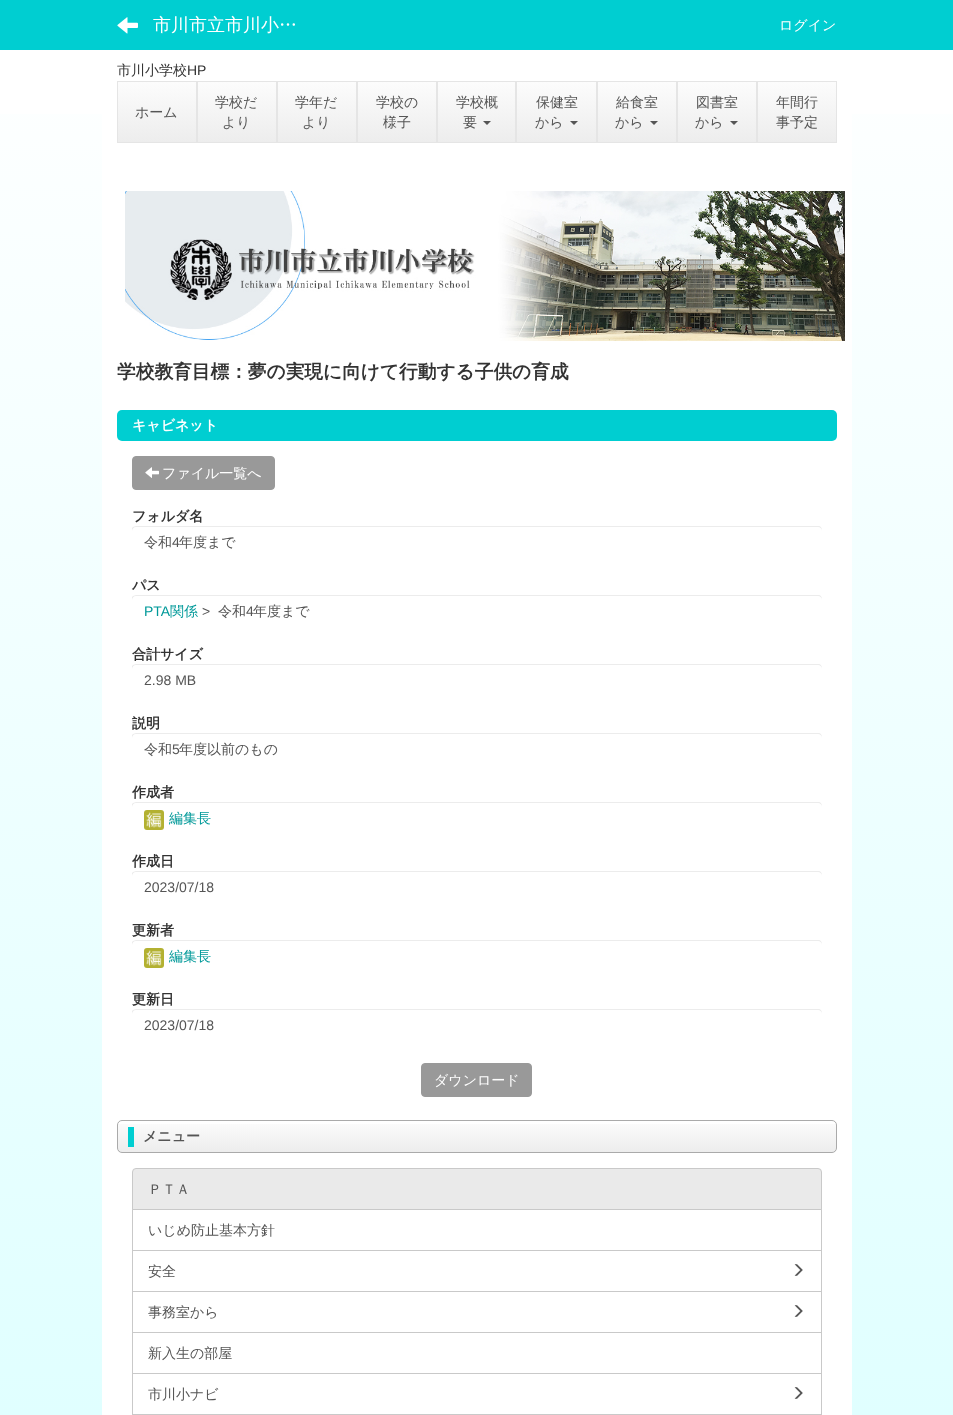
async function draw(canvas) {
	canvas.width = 953;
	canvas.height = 1415;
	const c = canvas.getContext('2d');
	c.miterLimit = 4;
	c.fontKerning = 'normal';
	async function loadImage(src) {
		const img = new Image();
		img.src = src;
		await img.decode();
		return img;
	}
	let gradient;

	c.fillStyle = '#fff';
	c.fillRect(0, 0, 953, 1415);
	gradient = c.createLinearGradient(477, 1415, 477, 0);
	gradient.addColorStop(0, '#e0ffff');
	gradient.addColorStop(1, '#fff');
	c.fillStyle = gradient;
	c.fillRect(0, 114, 953, 1301);
	c.fillStyle = '#00ced1';
	c.fillRect(0, 0, 953, 50);
	c.drawImage(await loadImage('img1.png'), 117, 17, 21, 17);
	c.font = '500 18px WenQuanYi Zen Hei';
	c.fillStyle = '#fff';
	c.fillText('市川市立市川小…', 153, 31);
	c.font = '500 14px WenQuanYi Zen Hei';
	c.fillText('ログイン', 779, 30);
	c.fillRect(102, 114, 750, 1301);
	c.fillStyle = '#333';
	c.fillText('市川小学校', 117, 75);
	c.font = '14px Liberation Sans';
	c.fillText('HP', 187, 75);
	gradient = c.createLinearGradient(157, 82, 157, 142);
	gradient.addColorStop(0, '#fcfcfc');
	gradient.addColorStop(1, '#ededed');
	c.fillStyle = gradient;
	c.fillRect(118, 82, 78, 60);
	c.strokeStyle = '#e5e5e5';
	c.strokeRect(117.5, 81.5, 79, 61);
	c.font = '500 14px WenQuanYi Zen Hei';
	c.fillStyle = '#555';
	c.fillText('ホーム', 135, 117);
	gradient = c.createLinearGradient(237, 82, 237, 142);
	gradient.addColorStop(0, '#fcfcfc');
	gradient.addColorStop(1, '#ededed');
	c.fillStyle = gradient;
	c.fillRect(198, 82, 78, 60);
	c.strokeRect(197.5, 81.5, 79, 61);
	c.fillStyle = '#555';
	c.fillText('学校だ', 215, 107);
	c.fillText('より', 222, 127);
	gradient = c.createLinearGradient(317, 82, 317, 142);
	gradient.addColorStop(0, '#fcfcfc');
	gradient.addColorStop(1, '#ededed');
	c.fillStyle = gradient;
	c.fillRect(278, 82, 78, 60);
	c.strokeRect(277.5, 81.5, 79, 61);
	c.fillStyle = '#555';
	c.fillText('学年だ', 295, 107);
	c.fillText('より', 302, 127);
	gradient = c.createLinearGradient(397, 82, 397, 142);
	gradient.addColorStop(0, '#fcfcfc');
	gradient.addColorStop(1, '#ededed');
	c.fillStyle = gradient;
	c.fillRect(358, 82, 78, 60);
	c.strokeRect(357.5, 81.5, 79, 61);
	c.fillStyle = '#555';
	c.fillText('学校の', 376, 107);
	c.fillText('様子', 383, 127);
	gradient = c.createLinearGradient(477, 82, 477, 142);
	gradient.addColorStop(0, '#fcfcfc');
	gradient.addColorStop(1, '#ededed');
	c.fillStyle = gradient;
	c.fillRect(438, 82, 77, 60);
	c.strokeRect(437.5, 81.5, 78, 61);
	c.fillStyle = '#555';
	c.fillText('学校概', 456, 107);
	c.fillText('要', 463, 127);
	c.beginPath();
	c.moveTo(483, 121);
	c.lineTo(491, 121);
	c.lineTo(487, 125);
	c.closePath();
	c.fill();
	gradient = c.createLinearGradient(557, 82, 557, 142);
	gradient.addColorStop(0, '#fcfcfc');
	gradient.addColorStop(1, '#ededed');
	c.fillStyle = gradient;
	c.fillRect(517, 82, 79, 60);
	c.strokeRect(516.5, 81.5, 80, 61);
	c.fillStyle = '#555';
	c.fillText('保健室', 536, 107);
	c.fillText('から', 535, 127);
	c.beginPath();
	c.moveTo(570, 121);
	c.lineTo(578, 121);
	c.lineTo(574, 125);
	c.closePath();
	c.fill();
	gradient = c.createLinearGradient(637, 82, 637, 142);
	gradient.addColorStop(0, '#fcfcfc');
	gradient.addColorStop(1, '#ededed');
	c.fillStyle = gradient;
	c.fillRect(598, 82, 78, 60);
	c.strokeRect(597.5, 81.5, 79, 61);
	c.fillStyle = '#555';
	c.fillText('給食室', 616, 107);
	c.fillText('から', 615, 127);
	c.beginPath();
	c.moveTo(650, 121);
	c.lineTo(658, 121);
	c.lineTo(654, 125);
	c.closePath();
	c.fill();
	gradient = c.createLinearGradient(717, 82, 717, 142);
	gradient.addColorStop(0, '#fcfcfc');
	gradient.addColorStop(1, '#ededed');
	c.fillStyle = gradient;
	c.fillRect(678, 82, 78, 60);
	c.strokeRect(677.5, 81.5, 79, 61);
	c.fillStyle = '#555';
	c.fillText('図書室', 696, 107);
	c.fillText('から', 695, 127);
	c.beginPath();
	c.moveTo(730, 121);
	c.lineTo(738, 121);
	c.lineTo(734, 125);
	c.closePath();
	c.fill();
	gradient = c.createLinearGradient(797, 82, 797, 142);
	gradient.addColorStop(0, '#fcfcfc');
	gradient.addColorStop(1, '#ededed');
	c.fillStyle = gradient;
	c.fillRect(758, 82, 78, 60);
	c.strokeRect(757.5, 81.5, 79, 61);
	c.fillStyle = '#555';
	c.fillText('年間行', 776, 107);
	c.fillText('事予定', 776, 127);
	c.drawImage(await loadImage('img2.png'), 125, 191, 720, 150);
	c.font = 'bold 18.7px WenQuanYi Zen Hei';
	c.fillStyle = '#333';
	c.fillText('学校教育目標：夢の実現に向けて行動する子供の育成', 117, 378);
	c.fillStyle = '#00ced1';
	c.beginPath();
	c.roundRect(117, 410, 720, 31, 5);
	c.fill();
	c.font = 'bold 14px WenQuanYi Zen Hei';
	c.fillStyle = '#fff';
	c.fillText('キャビネット', 132, 430);
	c.fillStyle = '#999';
	c.beginPath();
	c.roundRect(132.5, 456.5, 142, 33, 3.5);
	c.fill();
	c.strokeStyle = '#999';
	c.stroke();
	c.drawImage(await loadImage('img3.png'), 145, 467, 14, 11);
	c.font = '500 14px WenQuanYi Zen Hei';
	c.fillStyle = '#fff';
	c.fillText('ファイル一覧へ', 162, 478);
	c.font = 'bold 14px WenQuanYi Zen Hei';
	c.fillStyle = '#333';
	c.fillText('フォルダ名', 132, 521);
	c.fillStyle = '#ececec';
	c.beginPath();
	c.moveTo(136, 527);
	c.lineTo(818, 527);
	c.bezierCurveTo(820, 527, 822, 529, 822, 531);
	c.bezierCurveTo(822, 528, 821, 526, 818, 526);
	c.lineTo(136, 526);
	c.lineTo(133, 527);
	c.lineTo(132, 528);
	c.lineTo(132, 531);
	c.bezierCurveTo(132, 529, 134, 527, 136, 527);
	c.closePath();
	c.fill();
	c.font = '500 14px WenQuanYi Zen Hei';
	c.fillStyle = '#555';
	c.fillText('令和', 144, 547);
	c.font = '14px Liberation Sans';
	c.fillText('4', 172, 547);
	c.font = '500 14px WenQuanYi Zen Hei';
	c.fillText('年度まで', 179, 547);
	c.font = 'bold 14px WenQuanYi Zen Hei';
	c.fillStyle = '#333';
	c.fillText('パス', 132, 590);
	c.fillStyle = '#ececec';
	c.beginPath();
	c.moveTo(136, 596);
	c.lineTo(818, 596);
	c.bezierCurveTo(820, 596, 822, 598, 822, 600);
	c.bezierCurveTo(822, 597, 821, 595, 818, 595);
	c.lineTo(136, 595);
	c.lineTo(133, 596);
	c.lineTo(132, 597);
	c.lineTo(132, 600);
	c.bezierCurveTo(132, 598, 134, 596, 136, 596);
	c.closePath();
	c.fill();
	c.font = '14px Liberation Sans';
	c.fillStyle = '#099';
	c.fillText('PTA', 144, 616);
	c.font = '500 14px WenQuanYi Zen Hei';
	c.fillText('関係', 170, 616);
	c.font = '14px Liberation Sans';
	c.fillStyle = '#555';
	c.fillText('>', 202, 616);
	c.font = '500 14px WenQuanYi Zen Hei';
	c.fillText('令和', 218, 616);
	c.font = '14px Liberation Sans';
	c.fillText('4', 246, 616);
	c.font = '500 14px WenQuanYi Zen Hei';
	c.fillText('年度まで', 253, 616);
	c.font = 'bold 14px WenQuanYi Zen Hei';
	c.fillStyle = '#333';
	c.fillText('合計サイズ', 132, 659);
	c.fillStyle = '#ececec';
	c.beginPath();
	c.moveTo(136, 665);
	c.lineTo(818, 665);
	c.bezierCurveTo(820, 665, 822, 667, 822, 669);
	c.bezierCurveTo(822, 666, 821, 664, 818, 664);
	c.lineTo(136, 664);
	c.lineTo(133, 665);
	c.lineTo(132, 666);
	c.lineTo(132, 669);
	c.bezierCurveTo(132, 667, 134, 665, 136, 665);
	c.closePath();
	c.fill();
	c.font = '14px Liberation Sans';
	c.fillStyle = '#555';
	c.fillText('2.98 MB', 144, 685);
	c.font = 'bold 14px WenQuanYi Zen Hei';
	c.fillStyle = '#333';
	c.fillText('説明', 132, 728);
	c.fillStyle = '#ececec';
	c.beginPath();
	c.moveTo(136, 734);
	c.lineTo(818, 734);
	c.bezierCurveTo(820, 734, 822, 736, 822, 738);
	c.bezierCurveTo(822, 735, 821, 733, 818, 733);
	c.lineTo(136, 733);
	c.lineTo(133, 734);
	c.lineTo(132, 735);
	c.lineTo(132, 738);
	c.bezierCurveTo(132, 736, 134, 734, 136, 734);
	c.closePath();
	c.fill();
	c.font = '500 14px WenQuanYi Zen Hei';
	c.fillStyle = '#555';
	c.fillText('令和', 144, 754);
	c.font = '14px Liberation Sans';
	c.fillText('5', 172, 754);
	c.font = '500 14px WenQuanYi Zen Hei';
	c.fillText('年度以前のもの', 179, 754);
	c.font = 'bold 14px WenQuanYi Zen Hei';
	c.fillStyle = '#333';
	c.fillText('作成者', 132, 797);
	c.fillStyle = '#ececec';
	c.beginPath();
	c.moveTo(136, 803);
	c.lineTo(818, 803);
	c.bezierCurveTo(820, 803, 822, 805, 822, 807);
	c.bezierCurveTo(822, 804, 821, 802, 818, 802);
	c.lineTo(136, 802);
	c.lineTo(133, 803);
	c.lineTo(132, 804);
	c.lineTo(132, 807);
	c.bezierCurveTo(132, 805, 134, 803, 136, 803);
	c.closePath();
	c.fill();
	c.drawImage(await loadImage('img4.png'), 144, 810, 20, 20);
	c.font = '500 14px WenQuanYi Zen Hei';
	c.fillStyle = '#099';
	c.fillText('編集長', 169, 823);
	c.font = 'bold 14px WenQuanYi Zen Hei';
	c.fillStyle = '#333';
	c.fillText('作成日', 132, 866);
	c.fillStyle = '#ececec';
	c.beginPath();
	c.moveTo(136, 872);
	c.lineTo(818, 872);
	c.bezierCurveTo(820, 872, 822, 874, 822, 876);
	c.bezierCurveTo(822, 873, 821, 871, 818, 871);
	c.lineTo(136, 871);
	c.lineTo(133, 872);
	c.lineTo(132, 873);
	c.lineTo(132, 876);
	c.bezierCurveTo(132, 874, 134, 872, 136, 872);
	c.closePath();
	c.fill();
	c.font = '14px Liberation Sans';
	c.fillStyle = '#555';
	c.fillText('2023/07/18', 144, 892);
	c.font = 'bold 14px WenQuanYi Zen Hei';
	c.fillStyle = '#333';
	c.fillText('更新者', 132, 935);
	c.fillStyle = '#ececec';
	c.beginPath();
	c.moveTo(136, 941);
	c.lineTo(818, 941);
	c.bezierCurveTo(820, 941, 822, 943, 822, 945);
	c.bezierCurveTo(822, 942, 821, 940, 818, 940);
	c.lineTo(136, 940);
	c.lineTo(133, 941);
	c.lineTo(132, 942);
	c.lineTo(132, 945);
	c.bezierCurveTo(132, 943, 134, 941, 136, 941);
	c.closePath();
	c.fill();
	c.drawImage(await loadImage('img4.png'), 144, 948, 20, 20);
	c.font = '500 14px WenQuanYi Zen Hei';
	c.fillStyle = '#099';
	c.fillText('編集長', 169, 961);
	c.font = 'bold 14px WenQuanYi Zen Hei';
	c.fillStyle = '#333';
	c.fillText('更新日', 132, 1004);
	c.fillStyle = '#ececec';
	c.beginPath();
	c.moveTo(136, 1010);
	c.lineTo(818, 1010);
	c.bezierCurveTo(820, 1010, 822, 1012, 822, 1014);
	c.bezierCurveTo(822, 1011, 821, 1009, 818, 1009);
	c.lineTo(136, 1009);
	c.lineTo(133, 1010);
	c.lineTo(132, 1011);
	c.lineTo(132, 1014);
	c.bezierCurveTo(132, 1012, 134, 1010, 136, 1010);
	c.closePath();
	c.fill();
	c.font = '14px Liberation Sans';
	c.fillStyle = '#555';
	c.fillText('2023/07/18', 144, 1030);
	c.fillStyle = '#999';
	c.beginPath();
	c.roundRect(421.5, 1063.5, 110, 33, 3.5);
	c.fill();
	c.stroke();
	c.font = '500 14px WenQuanYi Zen Hei';
	c.fillStyle = '#fff';
	c.fillText('ダウンロード', 434, 1085);
	c.drawImage(await loadImage('img5.png'), 118, 1124, 718, 28);
	c.beginPath();
	c.roundRect(117.5, 1120.5, 719, 32, 4.5);
	c.strokeStyle = '#aaa';
	c.stroke();
	c.font = 'bold 14px WenQuanYi Zen Hei';
	c.fillStyle = '#555';
	c.fillText('メニュー', 143, 1141);
	c.strokeStyle = '#c9c9c9';
	c.strokeRect(132.5, 1209.5, 689, 41);
	c.fillStyle = '#eaeaea';
	c.beginPath();
	c.roundRect(132.5, 1168.5, 689, 41, [3.5, 3.5, 0, 0]);
	c.fill();
	c.stroke();
	c.font = '500 14px WenQuanYi Zen Hei';
	c.fillStyle = '#555';
	c.fillText('ＰＴＡ', 148, 1194);
	c.fillText('いじめ防止基本方針', 148, 1235);
	c.strokeRect(132.5, 1250.5, 689, 41);
	c.fillText('安全', 148, 1276);
	c.drawImage(await loadImage('img6.png'), 794, 1264, 9, 12);
	c.strokeRect(132.5, 1291.5, 689, 41);
	c.fillText('事務室から', 148, 1317);
	c.drawImage(await loadImage('img6.png'), 794, 1305, 9, 12);
	c.strokeRect(132.5, 1332.5, 689, 41);
	c.fillText('新入生の部屋', 148, 1358);
	c.strokeRect(132.5, 1373.5, 689, 41);
	c.fillText('市川小ナビ', 148, 1399);
	c.drawImage(await loadImage('img6.png'), 794, 1387, 9, 12);
}

draw(document.querySelector('canvas'));
